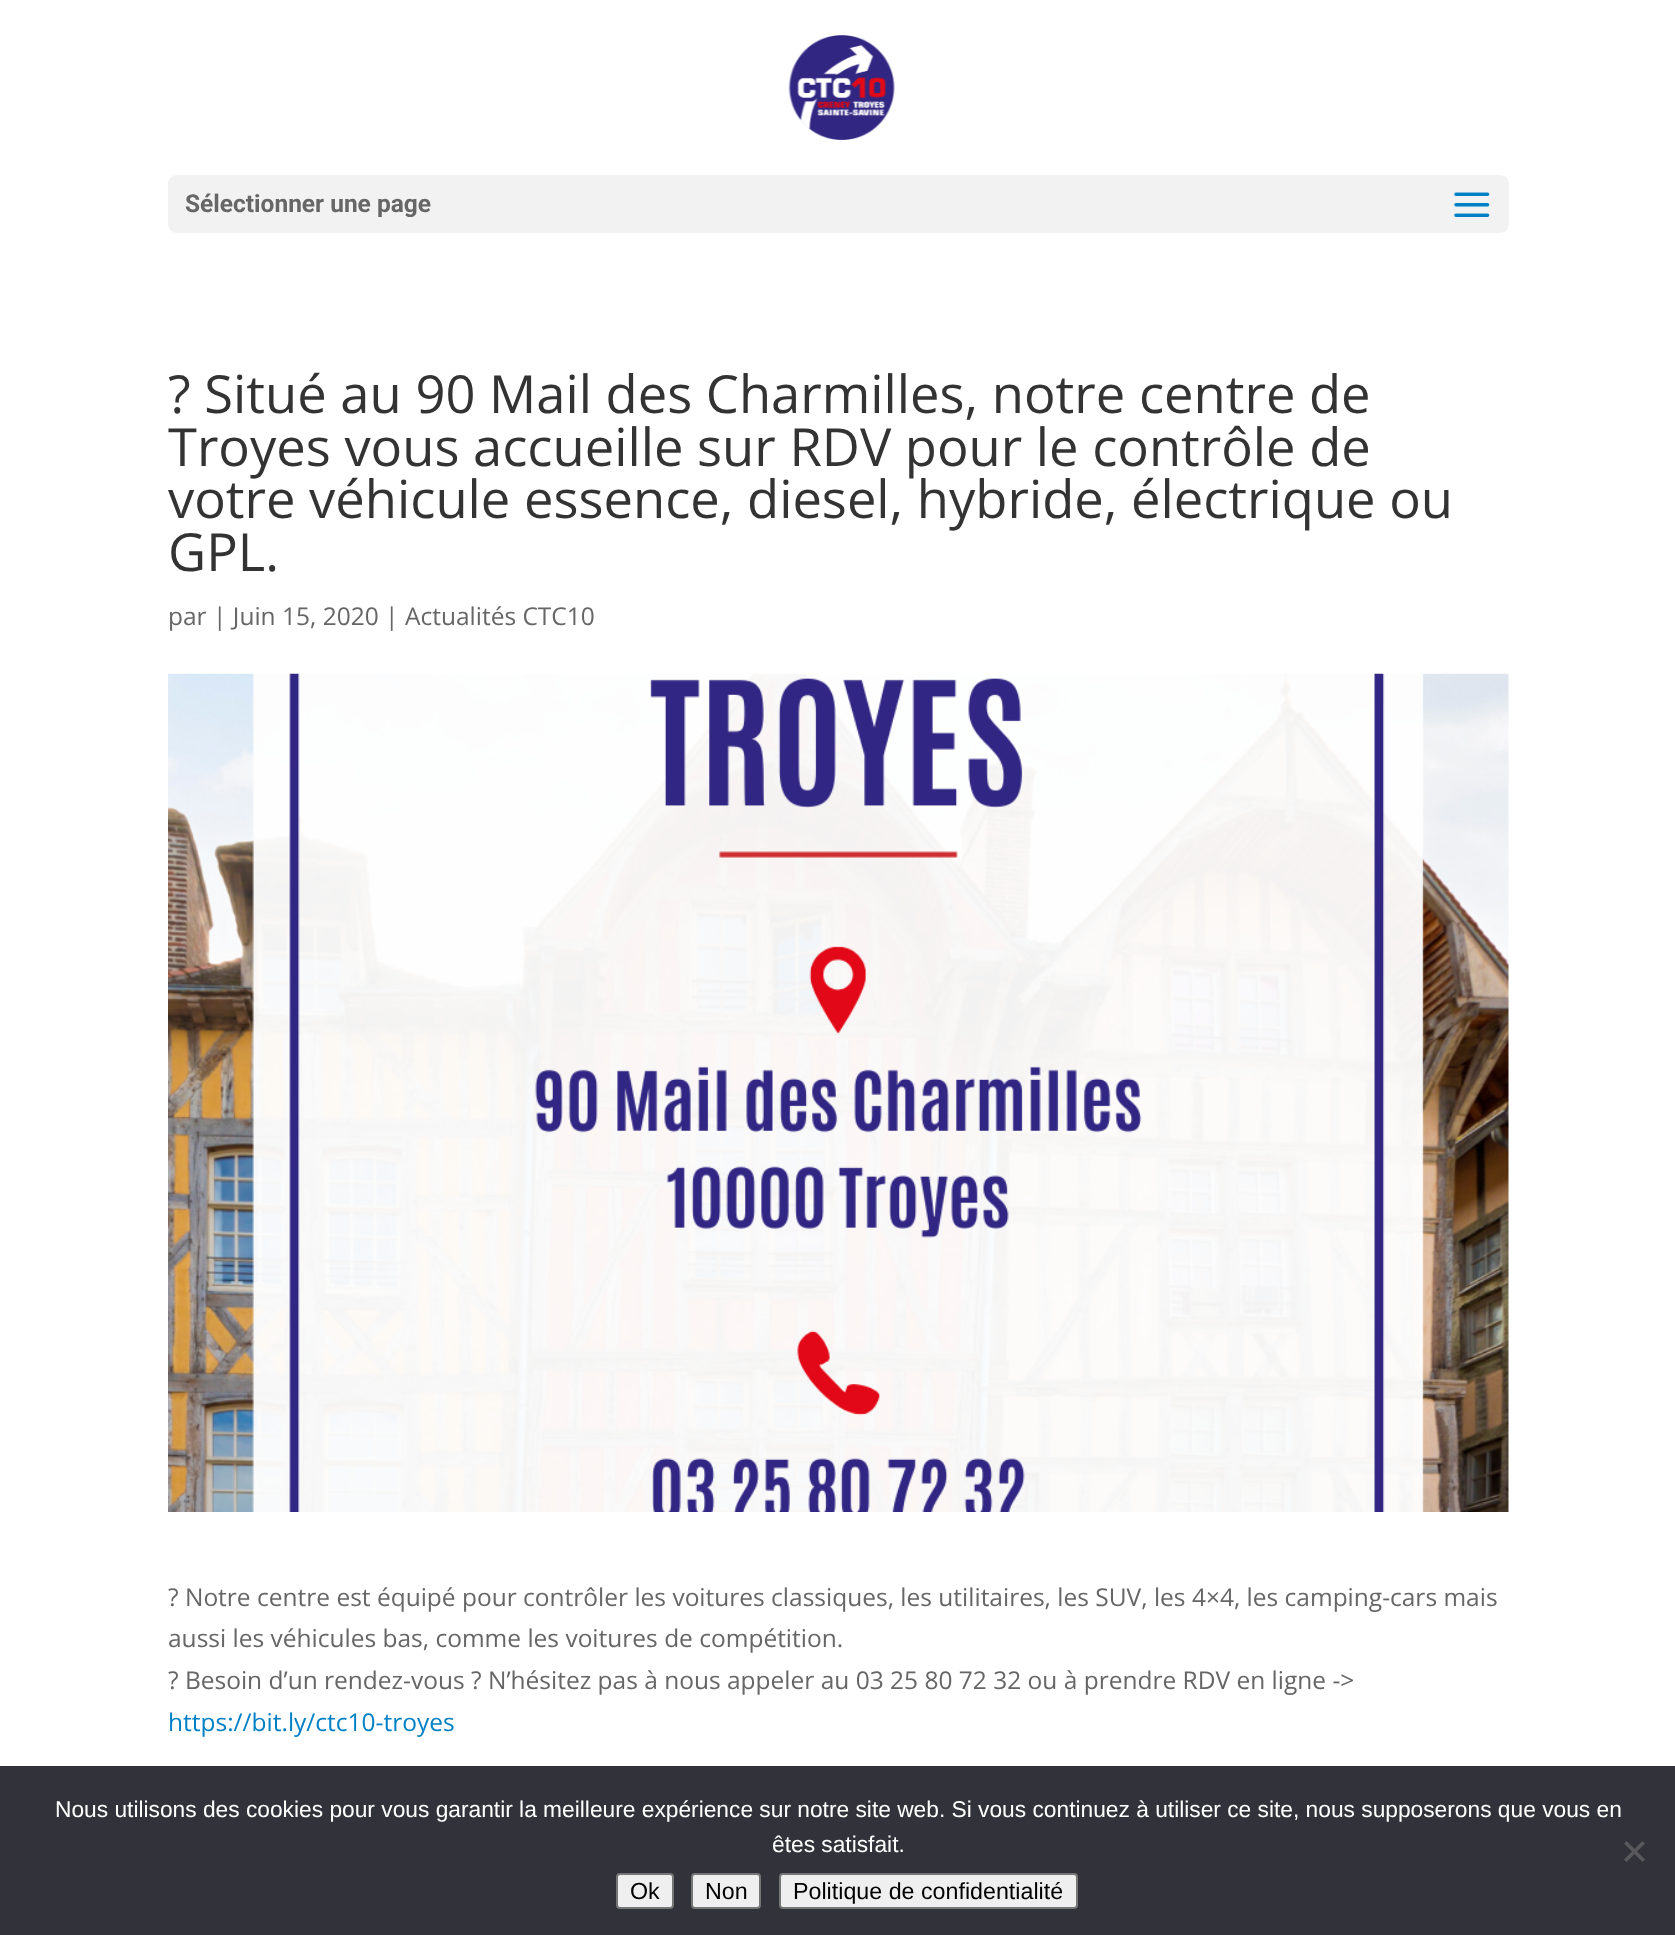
async function draw(canvas) {
	canvas.width = 1675;
	canvas.height = 1935;
	const c = canvas.getContext('2d');
	c.miterLimit = 4;
	c.fontKerning = 'normal';
	async function loadImage(src) {
		const img = new Image();
		img.src = src;
		await img.decode();
		return img;
	}

	c.fillStyle = '#fff';
	c.fillRect(0, 0, 1675, 1935);
	c.drawImage(await loadImage('img1.png'), 788, 35, 107, 105);
	c.fillStyle = '#f2f2f2';
	c.beginPath();
	c.roundRect(168, 175, 1341, 58, 9);
	c.fill();
	c.font = 'bold 24.5px Roboto';
	c.fillStyle = '#666';
	c.fillText('Sélectionner une page', 185, 212);
	c.drawImage(await loadImage('img2.png'), 1454, 192, 36, 25);
	c.font = '52.5px Open Sans';
	c.fillStyle = '#333';
	for (const [text, x, y] of [
		['? Situé au 90 Mail des Charmilles, notre centre de', 168, 413],
		['Troyes vous accueille sur RDV pour le contrôle de', 168, 466],
		['votre véhicule essence, diesel, hybride, électrique ou', 168, 518],
		['GPL.', 168, 571],
	]) {
		c.fillText(text, x, y);
	}
	c.font = '24.5px Open Sans';
	c.fillStyle = '#666';
	c.fillText('par | Juin 15, 2020 | Actualités CTC10', 168, 625);
	c.drawImage(await loadImage('img3.png'), 168, 673, 1341, 839);
	for (const [text, x, y] of [
		['? Notre centre est équipé pour contrôler les voitures classiques, les utilitaires, les SUV, les 4×4, les camping-cars mais', 168, 1606],
		['aussi les véhicules bas, comme les voitures de compétition.', 168, 1647],
		['? Besoin d’un rendez-vous ? N’hésitez pas à nous appeler au 03 25 80 72 32 ou à prendre RDV en ligne ->', 168, 1689],
	]) {
		c.fillText(text, x, y);
	}
	c.fillStyle = '#0081c6';
	c.fillText('https://bit.ly/ctc10-troyes', 168, 1731);
	c.fillStyle = '#32323a';
	c.fillRect(0, 1766, 1675, 169);
	c.font = '22.75px Liberation Sans';
	c.fillStyle = '#fff';
	c.fillText('Nous utilisons des cookies pour vous garantir la meilleure expérience sur notre site web. Si vous continuez à utiliser ce site, nous supposerons que vous en', 55, 1817);
	c.fillText('êtes satisfait.', 772, 1852);
	c.fillStyle = '#59595d';
	c.beginPath();
	c.moveTo(1642.5, 1841);
	c.lineTo(1645, 1843.5);
	c.lineTo(1626.5, 1862);
	c.lineTo(1624, 1859.5);
	c.closePath();
	c.fill();
	c.beginPath();
	c.moveTo(1624, 1843.5);
	c.lineTo(1626.5, 1841);
	c.lineTo(1645, 1859.5);
	c.lineTo(1642.5, 1862);
	c.closePath();
	c.fill();
	c.fillStyle = '#efefef';
	c.beginPath();
	c.roundRect(617, 1874, 56, 34, 3);
	c.fill();
	c.strokeStyle = '#767676';
	c.lineWidth = 2;
	c.stroke();
	c.font = '23.25px Liberation Sans';
	c.fillStyle = '#000';
	c.fillText('Ok', 630, 1899);
	c.fillStyle = '#efefef';
	c.beginPath();
	c.roundRect(692, 1874, 68, 34, 3);
	c.fill();
	c.stroke();
	c.fillStyle = '#000';
	c.fillText('Non', 705, 1899);
	c.fillStyle = '#efefef';
	c.beginPath();
	c.roundRect(780, 1874, 297, 34, 3);
	c.fill();
	c.stroke();
	c.fillStyle = '#000';
	c.fillText('Politique de confidentialité', 793, 1899);
}

draw(document.querySelector('canvas'));
